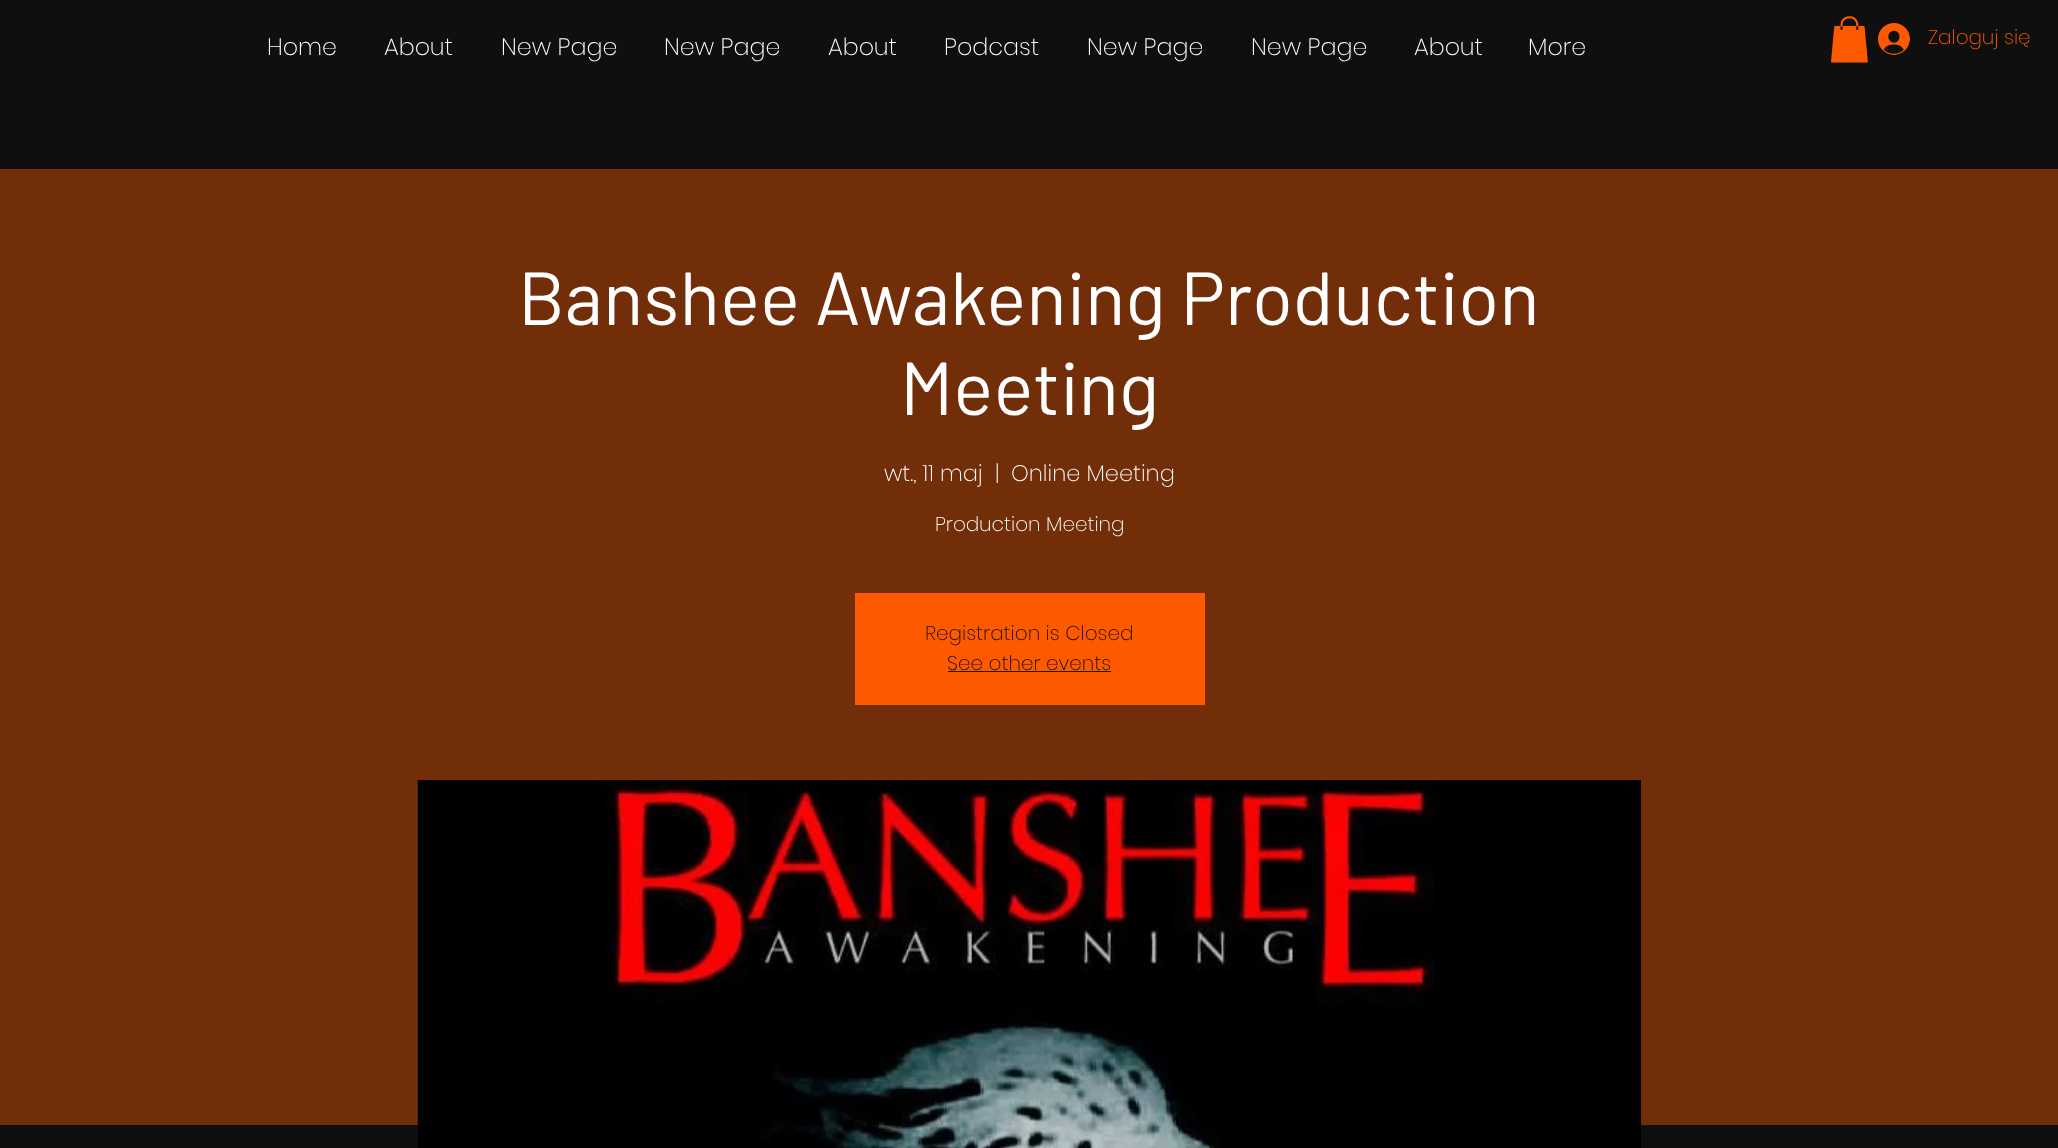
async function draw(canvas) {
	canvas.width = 2058;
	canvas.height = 1148;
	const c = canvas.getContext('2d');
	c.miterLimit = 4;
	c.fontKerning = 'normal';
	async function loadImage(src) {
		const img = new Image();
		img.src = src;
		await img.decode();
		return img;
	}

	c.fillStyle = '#0f0f0f';
	c.fillRect(0, 0, 2058, 1148);
	c.font = '200 23.75px Poppins';
	c.fillStyle = '#fff';
	for (const [text, x, y] of [
		['Home', 267, 55],
		['About', 384, 55],
		['New Page', 501, 55],
		['New Page', 664, 55],
		['About', 828, 55],
		['Podcast', 944, 55],
		['New Page', 1087, 55],
		['New Page', 1251, 55],
		['About', 1414, 55],
		['More', 1528, 55],
	]) {
		c.fillText(text, x, y);
	}
	c.drawImage(await loadImage('img1.png'), 1831, 16, 37, 47);
	c.drawImage(await loadImage('img2.png'), 1878, 23, 32, 32);
	c.font = '200 20px Poppins';
	c.fillStyle = '#ff5900';
	c.fillText('Zaloguj się', 1928, 44);
	c.fillStyle = '#722e09';
	c.fillRect(0, 169, 2058, 956);
	c.font = '75px Barlow';
	c.fillStyle = '#fff';
	c.fillText('Banshee Awakening Production', 518, 325);
	c.fillText('Meeting', 900, 415);
	c.font = '200 22.5px Poppins';
	for (const [text, x, y] of [
		['wt., 11 maj', 884, 481],
		['|', 995, 481],
		['Online Meeting', 1011, 481],
	]) {
		c.fillText(text, x, y);
	}
	c.font = '200 20px Poppins';
	c.fillText('Production Meeting', 935, 531);
	c.fillStyle = '#ff5900';
	c.fillRect(855, 593, 350, 112);
	c.fillStyle = '#0f0f0f';
	c.fillText('Registration is Closed', 925, 640);
	c.fillText('See other events', 947, 670);
	c.fillRect(948, 671, 163, 1);
	c.drawImage(await loadImage('img3.png'), 417, 780, 1225, 368);
}

draw(document.querySelector('canvas'));
